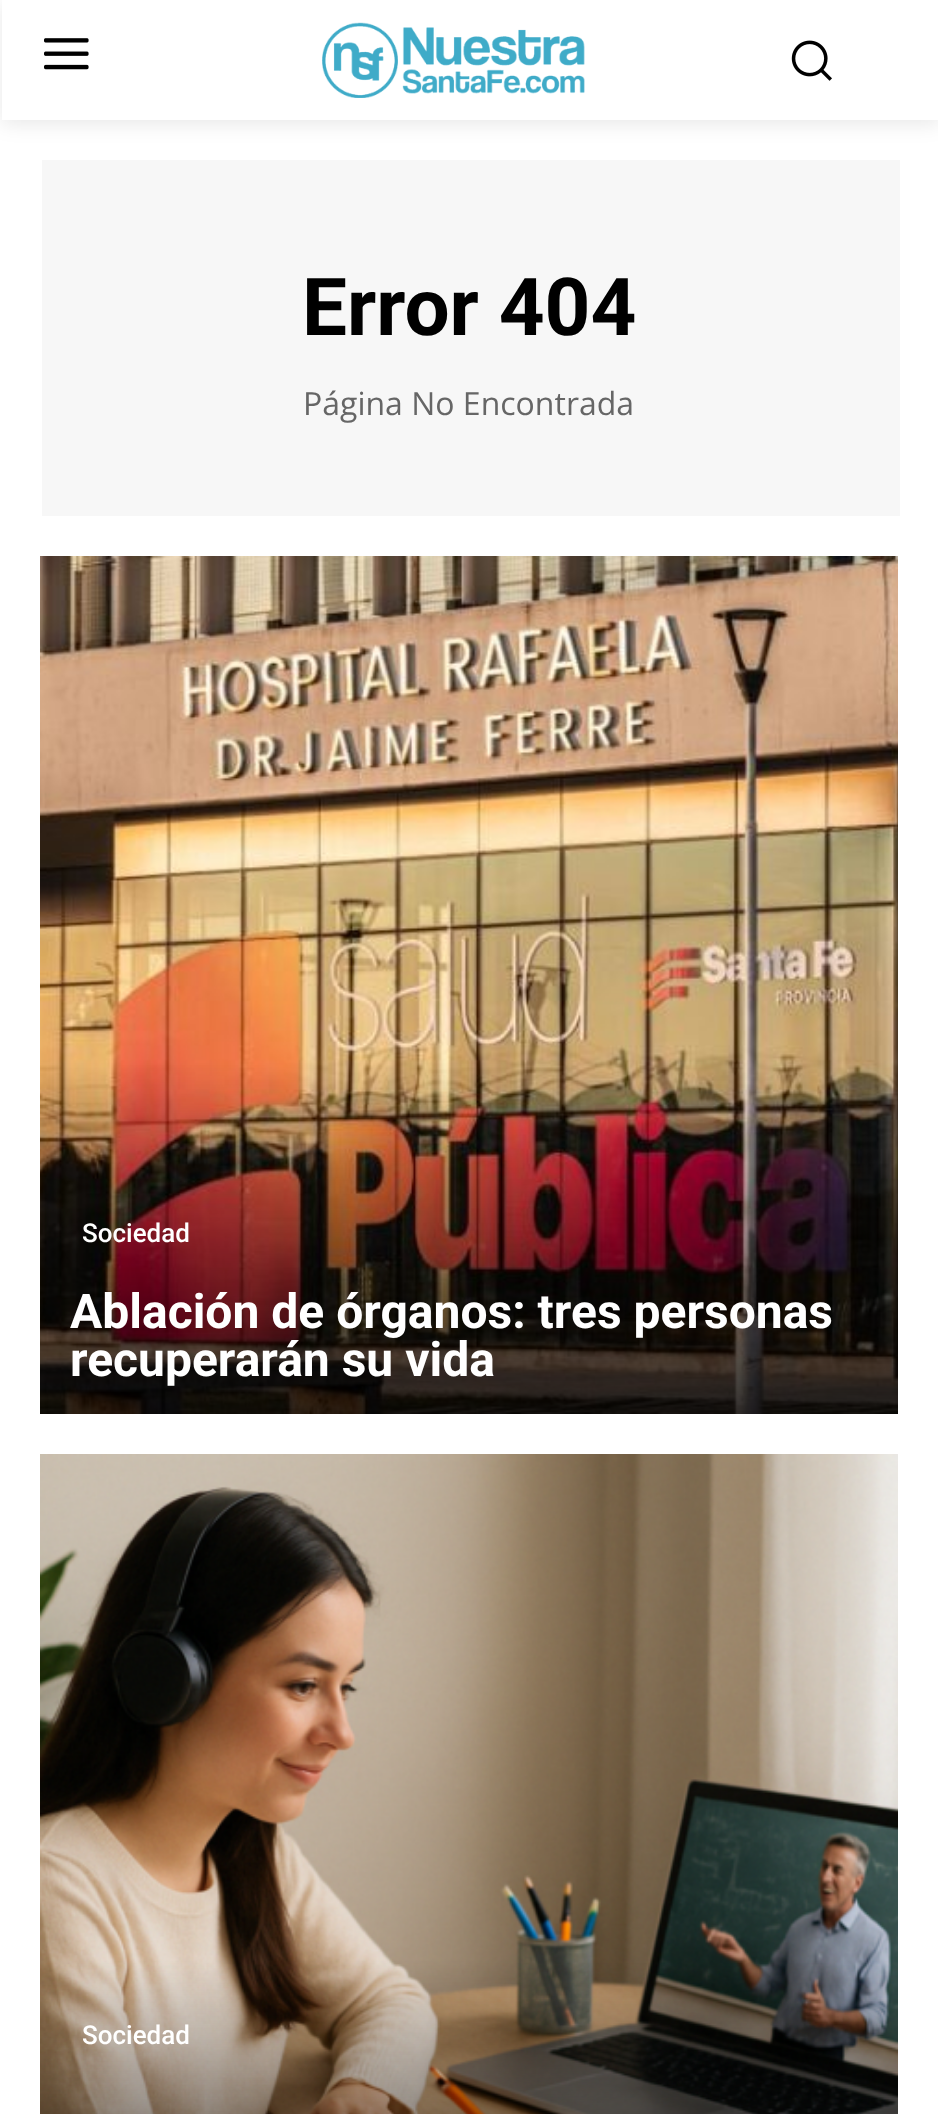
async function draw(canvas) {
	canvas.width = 938;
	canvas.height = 2114;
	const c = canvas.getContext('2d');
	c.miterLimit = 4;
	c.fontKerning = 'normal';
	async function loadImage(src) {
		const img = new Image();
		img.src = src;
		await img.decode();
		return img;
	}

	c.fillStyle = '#fff';
	c.fillRect(0, 0, 938, 2114);
	c.drawImage(await loadImage('img1.png'), 44, 38, 45, 32);
	c.drawImage(await loadImage('img2.png'), 322, 22, 263, 76);
	c.drawImage(await loadImage('img3.png'), 791, 40, 41, 41);
	c.save();
	c.beginPath();
	c.moveTo(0, 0);
	c.lineTo(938, 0);
	c.lineTo(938, 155);
	c.lineTo(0, 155);
	c.closePath();
	c.moveTo(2, 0);
	c.lineTo(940, 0);
	c.lineTo(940, 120);
	c.lineTo(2, 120);
	c.closePath();
	c.clip('evenodd');
	c.fillStyle = '#00000017';
	c.filter = 'blur(10px)';
	c.beginPath();
	c.rect(2, 4, 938, 120);
	c.fill();
	c.filter = 'none';
	c.restore();
	c.fillStyle = '#f7f7f7';
	c.fillRect(42, 160, 858, 356);
	c.font = 'bold 80px Roboto';
	c.fillStyle = '#000';
	c.fillText('Error 404', 302, 335);
	c.font = '32px Open Sans';
	c.fillStyle = '#666';
	c.fillText('Página No Encontrada', 303, 415);
	c.drawImage(await loadImage('img4.png'), 40, 556, 858, 858);
	c.font = '500 26px Roboto';
	c.fillStyle = '#fff';
	c.fillText('Sociedad', 82, 1242);
	c.font = 'bold 48px Roboto';
	c.fillText('Ablación de órganos: tres personas', 70, 1328);
	c.fillText('recuperarán su vida', 70, 1376);
	c.drawImage(await loadImage('img5.png'), 40, 1454, 858, 660);
	c.font = '500 26px Roboto';
	c.fillText('Sociedad', 82, 2044);
}

draw(document.querySelector('canvas'));
